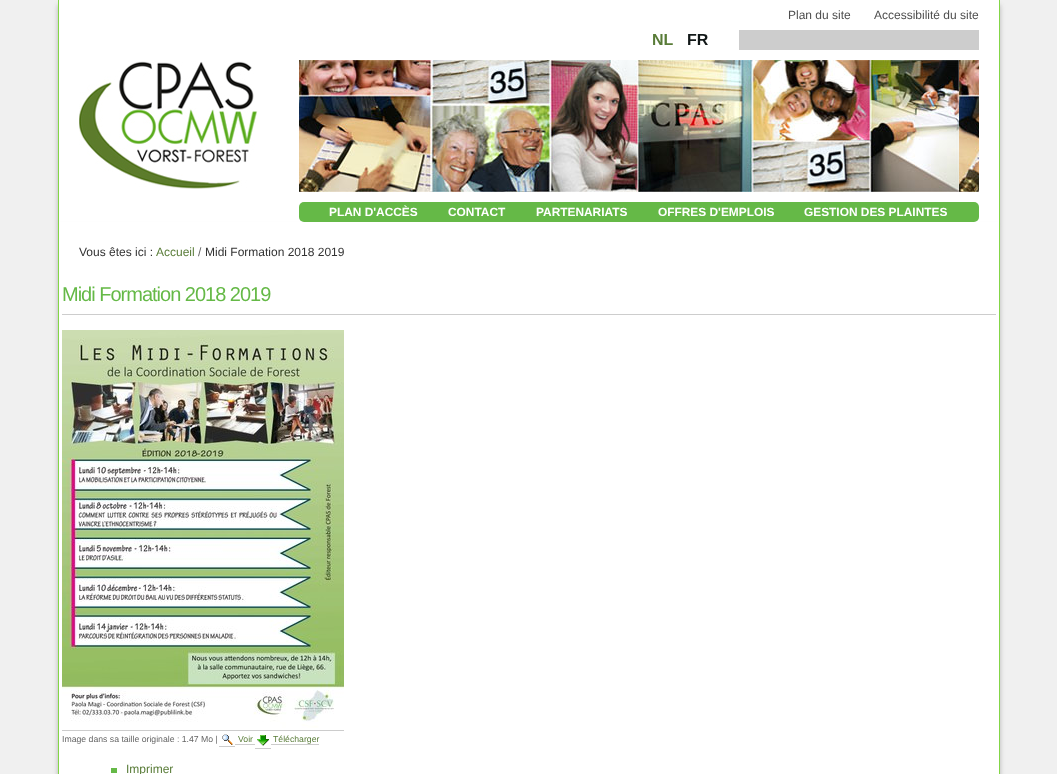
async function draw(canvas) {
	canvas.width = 1057;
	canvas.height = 774;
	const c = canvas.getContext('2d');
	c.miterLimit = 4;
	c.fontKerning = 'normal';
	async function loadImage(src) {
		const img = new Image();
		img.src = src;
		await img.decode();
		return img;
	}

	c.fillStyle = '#f0f0f0';
	c.fillRect(0, 0, 1057, 774);
	c.fillStyle = '#3232324d';
	c.filter = 'blur(2.5px)';
	c.beginPath();
	c.rect(58, 5, 942, 222);
	c.fill();
	c.filter = 'none';
	for (const [x, y, w, h, color] of [
		[59, 0, 940, 222, '#fff'],
		[999, 0, 1, 222, '#83d646'],
		[58, 0, 1, 222, '#83d646'],
	]) {
		c.fillStyle = color;
		c.fillRect(x, y, w, h);
	}
	c.font = '12px Liberation Sans';
	c.fillStyle = '#4e4e4e';
	c.fillText('Plan du site', 788, 19);
	c.fillText('Accessibilité du site', 874, 19);
	c.fillStyle = '#cdcdcd';
	c.fillRect(739, 30, 240, 20);
	c.font = 'bold 16px Liberation Sans';
	c.fillStyle = '#597c38';
	c.fillText('NL', 652, 45);
	c.fillStyle = '#121818';
	c.fillText('FR', 687, 45);
	c.drawImage(await loadImage('img1.png'), 79, 61, 179, 128);
	c.drawImage(await loadImage('img2.png'), 299, 60, 680, 132);
	c.fillStyle = '#3232324d';
	c.filter = 'blur(2.5px)';
	c.beginPath();
	c.rect(58, 227, 942, 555);
	c.fill();
	c.filter = 'none';
	c.fillStyle = '#65b947';
	c.beginPath();
	c.roundRect(299, 202, 680, 20, 5);
	c.fill();
	c.font = 'bold 11.9px Liberation Sans';
	c.fillStyle = '#fff';
	for (const [text, x, y] of [
		['PLAN D\'ACCÈS', 329, 216],
		['CONTACT', 448, 216],
		['PARTENARIATS', 536, 216],
		['OFFRES D\'EMPLOIS', 658, 216],
		['GESTION DES PLAINTES', 804, 216],
	]) {
		c.fillText(text, x, y);
	}
	for (const [x, y, w, h, color] of [
		[59, 222, 940, 552, '#fff'],
		[999, 222, 1, 552, '#83d646'],
		[58, 222, 1, 552, '#83d646'],
	]) {
		c.fillStyle = color;
		c.fillRect(x, y, w, h);
	}
	c.font = '12px Liberation Sans';
	c.fillStyle = '#333';
	c.fillText('Vous êtes ici :', 79, 256);
	c.fillStyle = '#597c38';
	c.fillText('Accueil', 156, 256);
	c.fillStyle = '#666';
	c.fillText('/', 198, 256);
	c.fillStyle = '#333';
	c.fillText('Midi Formation 2018 2019', 205, 256);
	c.fillStyle = '#cdcdcd';
	c.fillRect(62, 314, 934, 1);
	c.letterSpacing = '-1px';
	c.font = '20px Liberation Sans';
	c.fillStyle = '#65b947';
	c.fillText('Midi Formation 2018 2019', 62, 301);
	c.drawImage(await loadImage('img3.png'), 62, 330, 282, 398);
	c.fillStyle = '#ccc';
	c.fillRect(62, 730, 282, 1);
	c.letterSpacing = '0px';
	c.font = '8.7px Liberation Sans';
	c.fillStyle = '#666';
	c.fillText('Image dans sa taille originale : 1.47 Mo |', 62, 742);
	c.fillStyle = '#ccc';
	c.fillRect(219, 746, 16, 1);
	c.drawImage(await loadImage('img4.png'), 222, 734, 11, 11);
	c.fillStyle = '#597c38';
	c.fillText('Voir', 238, 742);
	c.fillStyle = '#ccc';
	c.fillRect(235, 744, 20, 1);
	c.drawImage(await loadImage('img5.png'), 257, 735, 12, 11);
	c.fillStyle = '#597c38';
	c.fillText('Télécharger', 273, 742);
	for (const [x, y, w, h, color] of [
		[255, 748, 16, 1, '#ccc'],
		[271, 744, 48, 1, '#ccc'],
		[111, 768, 6, 5, '#65b947'],
	]) {
		c.fillStyle = color;
		c.fillRect(x, y, w, h);
	}
	c.font = '12px Liberation Sans';
	c.fillStyle = '#597c38';
	c.fillText('Imprimer', 126, 773);
}

draw(document.querySelector('canvas'));
